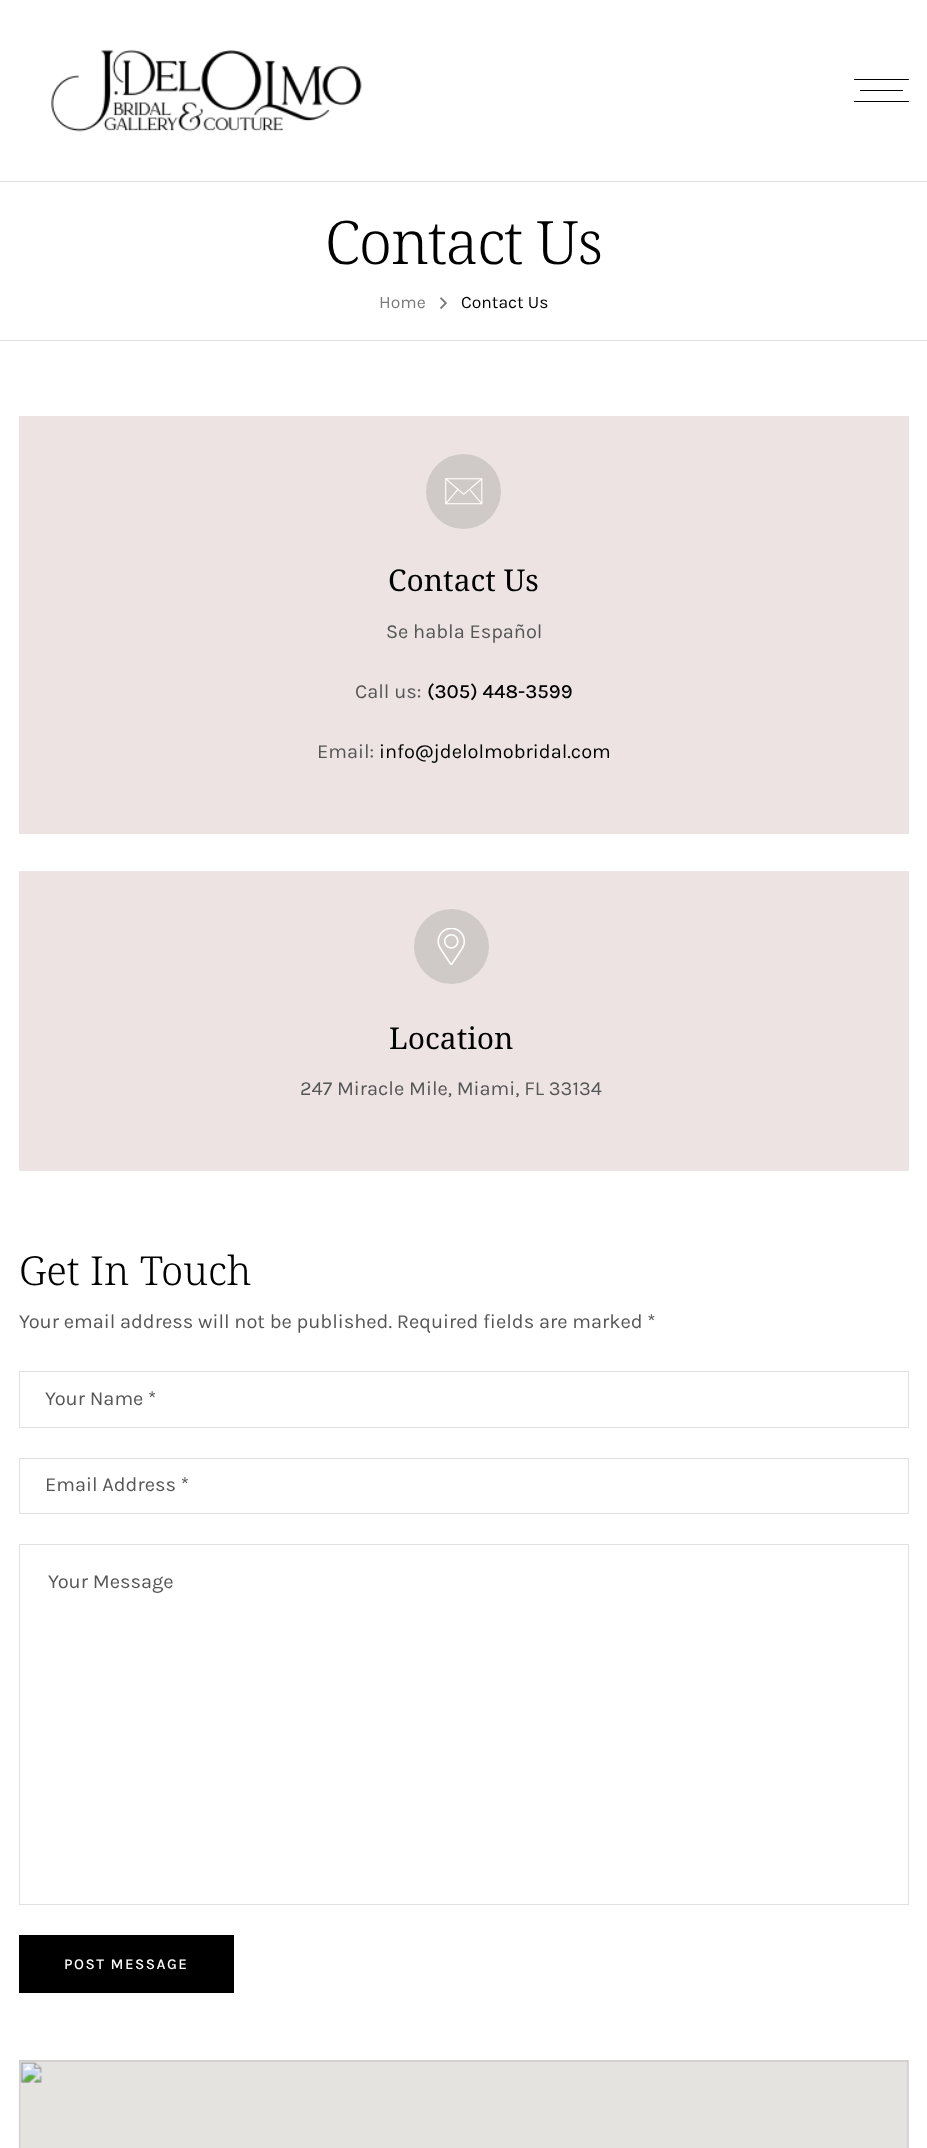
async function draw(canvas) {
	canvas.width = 927;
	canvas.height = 2148;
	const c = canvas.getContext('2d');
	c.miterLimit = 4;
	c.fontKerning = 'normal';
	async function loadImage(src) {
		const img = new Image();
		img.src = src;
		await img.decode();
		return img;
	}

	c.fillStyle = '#fff';
	c.fillRect(0, 0, 927, 2148);
	c.drawImage(await loadImage('img1.png'), 51, 49, 311, 83);
	c.fillStyle = '#000';
	c.beginPath();
	c.roundRect(854, 79, 55, 1, 0.5);
	c.fill();
	c.beginPath();
	c.roundRect(860, 90, 43, 1, 0.5);
	c.fill();
	c.beginPath();
	c.roundRect(854, 101, 55, 1, 0.5);
	c.fill();
	c.fillStyle = '#e1e1e1';
	c.fillRect(0, 181, 927, 1);
	c.fillRect(0, 340, 927, 1);
	c.letterSpacing = '-1.25px';
	c.font = '300 60px Noto Serif';
	c.fillStyle = '#000';
	c.fillText('Contact Us', 325, 264);
	c.letterSpacing = '0px';
	c.font = '17.5px Karla';
	c.fillStyle = '#7a7a7a';
	c.fillText('Home', 379, 308);
	c.drawImage(await loadImage('img2.png'), 440, 297, 7, 12);
	c.fillStyle = '#000';
	c.fillText('Contact Us', 461, 308);
	c.fillStyle = '#ede3e3';
	c.fillRect(19, 416, 890, 418);
	c.fillStyle = '#cfcac7';
	c.beginPath();
	c.arc(463.5, 491.5, 37.5, 0, 2 * Math.PI);
	c.fill();
	c.drawImage(await loadImage('img3.png'), 445, 478, 38, 27);
	c.font = '30px Noto Serif';
	c.fillStyle = '#000';
	c.fillText('Contact Us', 388, 591);
	c.font = '20px Karla';
	c.fillStyle = '#565656';
	c.fillText('Se habla Español', 386, 638);
	c.fillText('Call us:', 355, 698);
	c.font = '500 20px Karla';
	c.fillStyle = '#000';
	c.fillText('(305) 448-3599', 427, 698);
	c.font = '20px Karla';
	c.fillStyle = '#565656';
	c.fillText('Email:', 317, 758);
	c.fillStyle = '#000';
	c.fillText('info@jdelolmobridal.com', 379, 758);
	c.fillStyle = '#ede3e3';
	c.fillRect(19, 871, 890, 300);
	c.fillStyle = '#cfcac7';
	c.beginPath();
	c.arc(451.5, 946.5, 37.5, 0, 2 * Math.PI);
	c.fill();
	c.drawImage(await loadImage('img4.png'), 437, 928, 29, 37);
	c.font = '30px Noto Serif';
	c.fillStyle = '#000';
	c.fillText('Location', 389, 1049);
	c.font = '20px Karla';
	c.fillStyle = '#565656';
	c.fillText('247 Miracle Mile, Miami, FL 33134', 300, 1095);
	c.font = '300 40px Noto Serif';
	c.fillStyle = '#000';
	c.fillText('Get In Touch', 19, 1285);
	c.font = '20px Karla';
	c.fillStyle = '#565656';
	c.fillText('Your email address will not be published. Required fields are marked *', 19, 1328);
	c.strokeStyle = '#e1e1e1';
	c.strokeRect(19.5, 1371.5, 889, 56);
	c.fillText('Your Name *', 45, 1405);
	c.strokeRect(19.5, 1458.5, 889, 55);
	c.fillText('Email Address *', 45, 1491);
	c.strokeRect(19.5, 1544.5, 889, 360);
	c.fillText('Your Message', 48, 1588);
	c.fillStyle = '#000';
	c.fillRect(19, 1935, 215, 58);
	c.letterSpacing = '1.5px';
	c.font = '500 15px Karla';
	c.fillStyle = '#fff';
	c.fillText('POST MESSAGE', 64, 1969);
	c.drawImage(await loadImage('img5.png'), 19, 2060, 890, 88);
}

draw(document.querySelector('canvas'));
